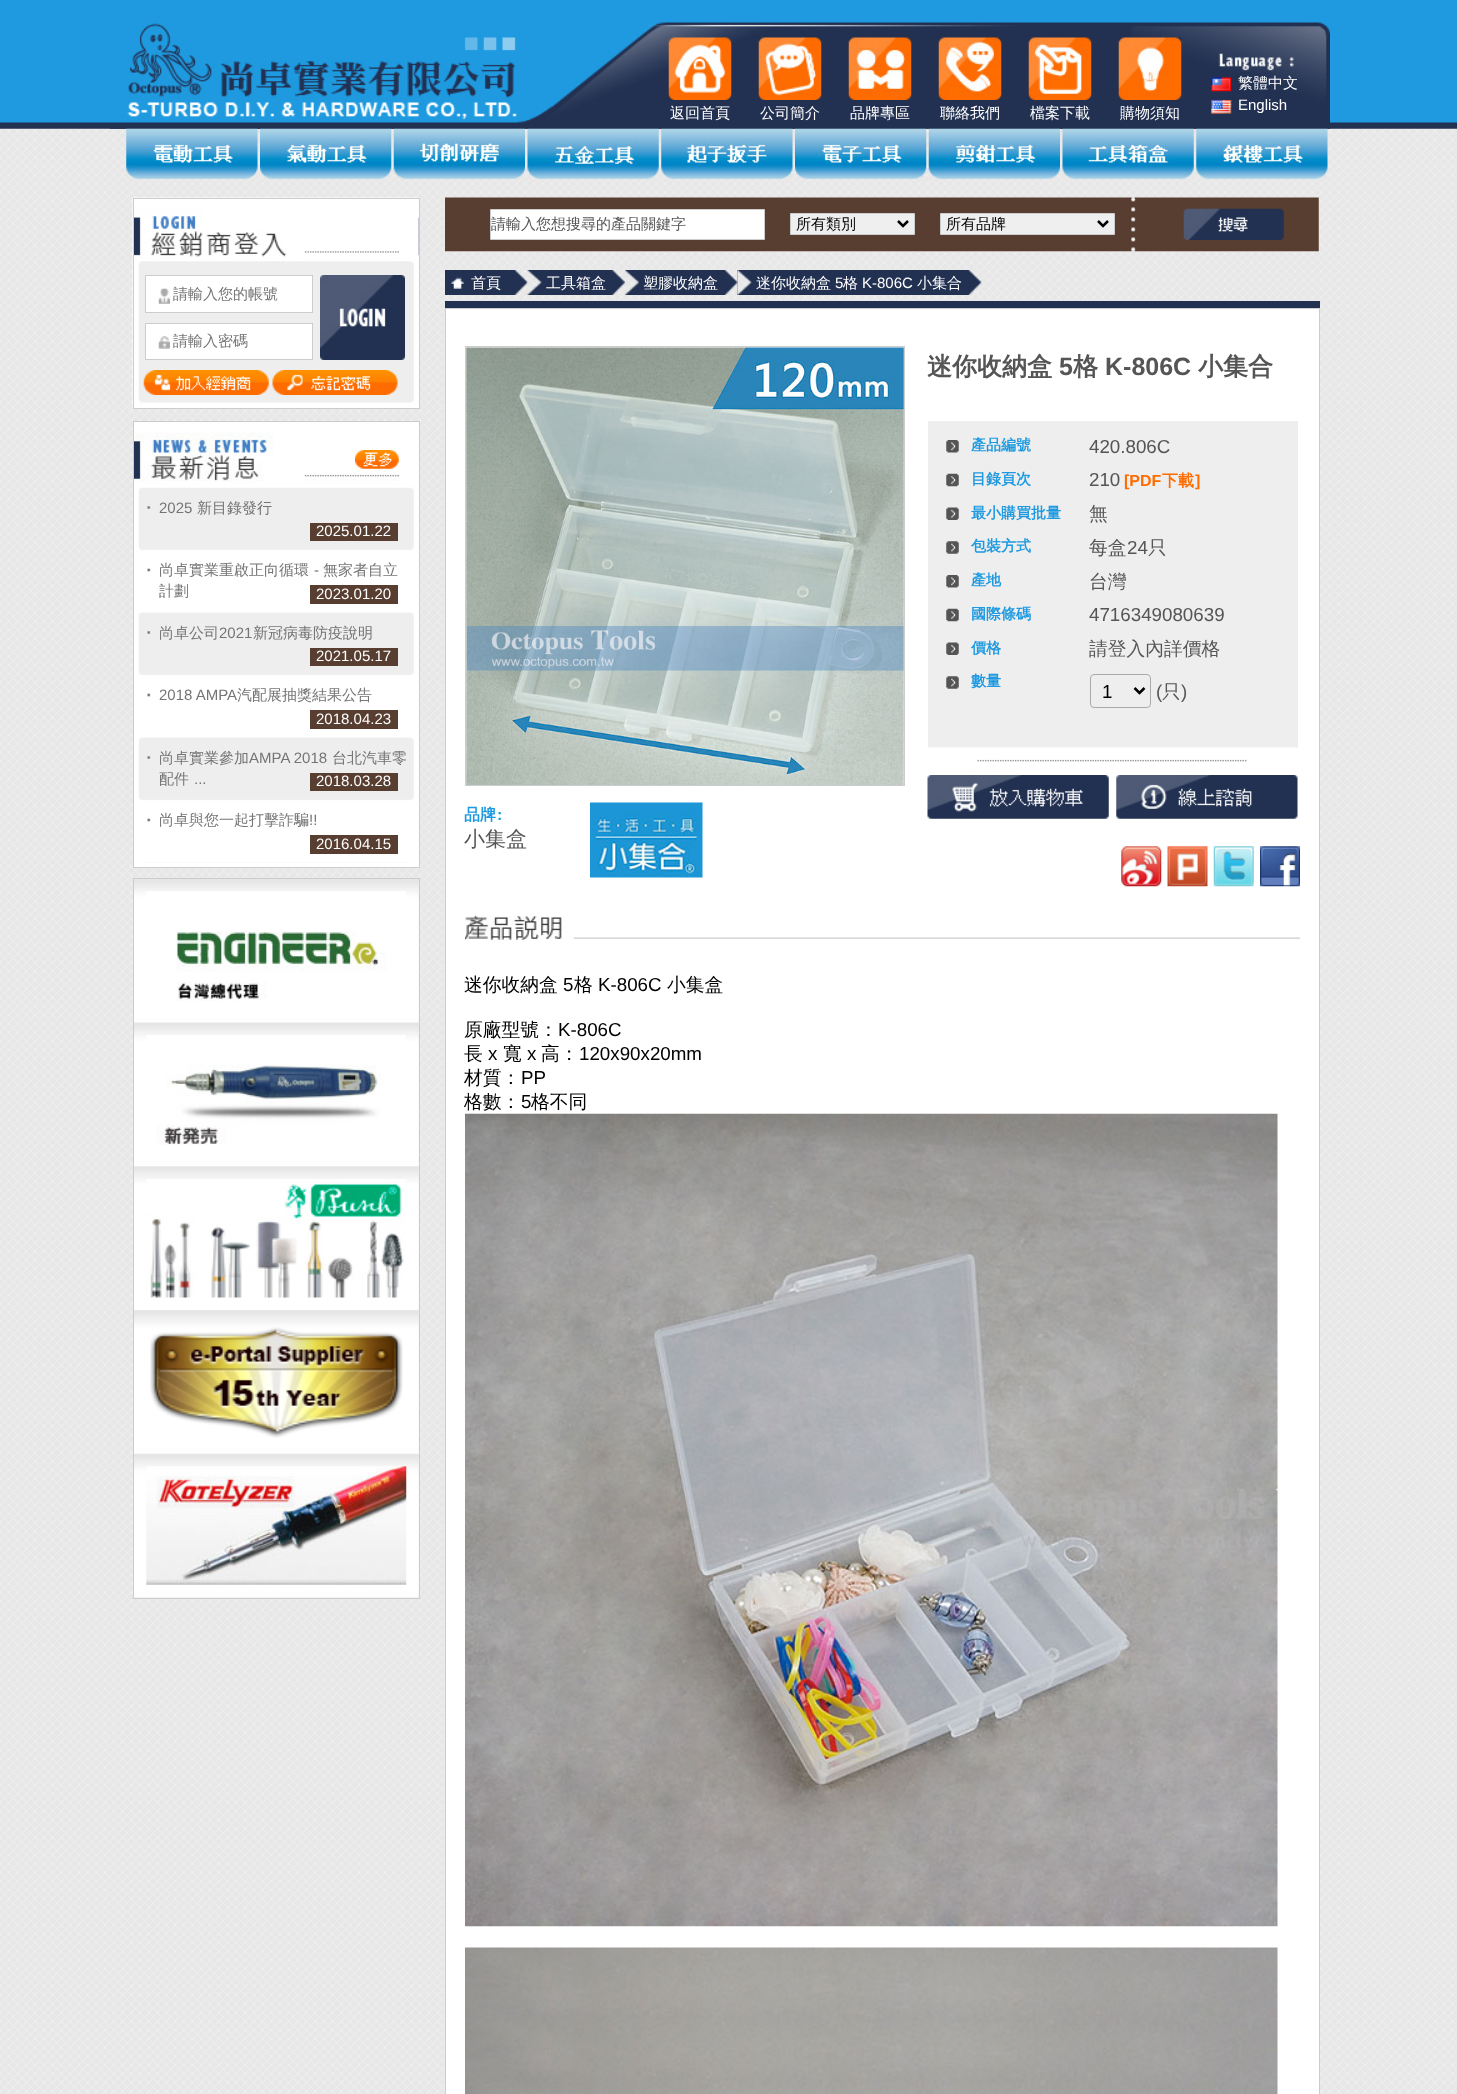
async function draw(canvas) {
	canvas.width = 1457;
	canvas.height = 2094;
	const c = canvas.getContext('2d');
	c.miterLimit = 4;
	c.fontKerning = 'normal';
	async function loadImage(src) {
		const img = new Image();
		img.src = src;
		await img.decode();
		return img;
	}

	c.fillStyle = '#fff';
	c.fillRect(0, 0, 1457, 2094);
	c.drawImage(await loadImage('img1.png'), 0, 128, 1457, 1966);
	c.drawImage(await loadImage('img2.png'), 0, 0, 1457, 129);
	c.drawImage(await loadImage('img3.png'), 110, 23, 408, 106);
	c.drawImage(await loadImage('img4.png'), 517, 22, 813, 107);
	c.drawImage(await loadImage('img5.png'), 668, 37, 64, 63);
	c.font = '500 15px WenQuanYi Zen Hei';
	c.fillText('返回首頁', 670, 118);
	c.drawImage(await loadImage('img6.png'), 758, 37, 64, 63);
	c.fillText('公司簡介', 760, 118);
	c.drawImage(await loadImage('img7.png'), 848, 37, 64, 63);
	c.fillText('品牌專區', 850, 118);
	c.drawImage(await loadImage('img8.png'), 938, 37, 64, 63);
	c.fillText('聯絡我們', 940, 118);
	c.drawImage(await loadImage('img9.png'), 1028, 37, 64, 63);
	c.fillText('檔案下載', 1030, 118);
	c.drawImage(await loadImage('img10.png'), 1118, 37, 64, 63);
	c.fillText('購物須知', 1120, 118);
	c.drawImage(await loadImage('img11.png'), 1211, 77, 21, 15);
	c.fillText('繁體中文', 1238, 88);
	c.drawImage(await loadImage('img12.png'), 1211, 100, 21, 14);
	c.font = '15px Liberation Sans';
	c.fillText('English', 1238, 110);
	c.drawImage(await loadImage('img13.png'), 126, 128, 132, 51);
	c.drawImage(await loadImage('img14.png'), 260, 128, 132, 51);
	c.drawImage(await loadImage('img15.png'), 393, 128, 132, 51);
	c.drawImage(await loadImage('img16.png'), 527, 128, 132, 51);
	c.drawImage(await loadImage('img17.png'), 661, 128, 132, 51);
	c.drawImage(await loadImage('img18.png'), 795, 128, 132, 51);
	c.drawImage(await loadImage('img19.png'), 928, 128, 132, 51);
	c.drawImage(await loadImage('img20.png'), 1062, 128, 132, 51);
	c.drawImage(await loadImage('img21.png'), 1196, 128, 132, 51);
	c.drawImage(await loadImage('img22.png'), 132, 197, 288, 212);
	c.strokeStyle = '#ccc';
	c.strokeRect(133.5, 198.5, 286, 210);
	c.fillRect(146, 276, 166, 36);
	c.drawImage(await loadImage('img23.png'), 158, 288, 12, 16);
	c.strokeRect(145.5, 275.5, 167, 37);
	c.font = '500 15px WenQuanYi Zen Hei';
	c.fillStyle = '#757575';
	c.fillText('請輸入您的帳號', 173, 299);
	c.fillStyle = '#fff';
	c.fillRect(146, 324, 166, 35);
	c.drawImage(await loadImage('img24.png'), 158, 336, 12, 13);
	c.strokeRect(145.5, 323.5, 167, 36);
	c.fillStyle = '#757575';
	c.fillText('請輸入密碼', 173, 346);
	c.drawImage(await loadImage('img25.png'), 320, 275, 85, 85);
	c.drawImage(await loadImage('img26.png'), 143, 370, 126, 25);
	c.drawImage(await loadImage('img27.png'), 272, 370, 126, 25);
	c.fillStyle = '#fff';
	c.fillRect(134, 422, 285, 445);
	c.drawImage(await loadImage('img28.png'), 134, 432, 266, 50);
	c.strokeRect(133.5, 421.5, 286, 446);
	c.drawImage(await loadImage('img29.png'), 355, 450, 44, 19);
	c.drawImage(await loadImage('img30.png'), 138, 487, 276, 376);
	c.font = '15px Liberation Sans';
	c.fillStyle = '#757575';
	c.fillText('2025', 159, 513);
	c.font = '500 15px WenQuanYi Zen Hei';
	c.fillText('新目錄發行', 197, 513);
	c.fillStyle = '#583e31';
	c.fillRect(310, 523, 88, 18);
	c.font = '15px Liberation Sans';
	c.fillStyle = '#fff';
	c.fillText('2025.01.22', 316, 536);
	c.font = '500 15px WenQuanYi Zen Hei';
	c.fillStyle = '#757575';
	c.fillText('尚卓實業重啟正向循環', 159, 575);
	c.font = '15px Liberation Sans';
	c.fillText('-', 314, 575);
	c.font = '500 15px WenQuanYi Zen Hei';
	c.fillText('無家者自立', 323, 575);
	c.fillText('計劃', 159, 596);
	c.fillStyle = '#583e31';
	c.fillRect(310, 585, 88, 19);
	c.font = '15px Liberation Sans';
	c.fillStyle = '#fff';
	c.fillText('2023.01.20', 316, 599);
	c.font = '500 15px WenQuanYi Zen Hei';
	c.fillStyle = '#757575';
	c.fillText('尚卓公司', 159, 638);
	c.font = '15px Liberation Sans';
	c.fillText('2021', 219, 638);
	c.font = '500 15px WenQuanYi Zen Hei';
	c.fillText('新冠病毒防疫說明', 253, 638);
	c.fillStyle = '#583e31';
	c.fillRect(310, 648, 88, 18);
	c.font = '15px Liberation Sans';
	c.fillStyle = '#fff';
	c.fillText('2021.05.17', 316, 661);
	c.fillStyle = '#757575';
	c.fillText('2018 AMPA', 159, 700);
	c.font = '500 15px WenQuanYi Zen Hei';
	c.fillText('汽配展抽獎結果公告', 237, 700);
	c.fillStyle = '#583e31';
	c.fillRect(310, 710, 88, 19);
	c.font = '15px Liberation Sans';
	c.fillStyle = '#fff';
	c.fillText('2018.04.23', 316, 724);
	c.font = '500 15px WenQuanYi Zen Hei';
	c.fillStyle = '#757575';
	c.fillText('尚卓實業參加', 159, 763);
	c.font = '15px Liberation Sans';
	c.fillText('AMPA 2018', 249, 763);
	c.font = '500 15px WenQuanYi Zen Hei';
	c.fillText('台北汽車零', 332, 763);
	c.fillText('配件', 159, 784);
	c.font = '15px Liberation Sans';
	c.fillText('...', 194, 784);
	c.fillStyle = '#583e31';
	c.fillRect(310, 773, 88, 18);
	c.fillStyle = '#fff';
	c.fillText('2018.03.28', 316, 786);
	c.font = '500 15px WenQuanYi Zen Hei';
	c.fillStyle = '#757575';
	c.fillText('尚卓與您一起打擊詐騙', 159, 825);
	c.font = '15px Liberation Sans';
	c.fillText('!!', 309, 825);
	c.fillStyle = '#583e31';
	c.fillRect(310, 835, 88, 19);
	c.fillStyle = '#fff';
	c.fillText('2016.04.15', 316, 849);
	c.drawImage(await loadImage('img31.png'), 134, 879, 285, 719);
	c.strokeRect(133.5, 878.5, 286, 720);
	c.drawImage(await loadImage('img32.png'), 146, 891, 260, 110);
	c.drawImage(await loadImage('img33.png'), 146, 1035, 260, 110);
	c.drawImage(await loadImage('img34.png'), 146, 1179, 260, 119);
	c.drawImage(await loadImage('img35.png'), 150, 1327, 253, 111);
	c.drawImage(await loadImage('img36.png'), 146, 1466, 261, 119);
	c.drawImage(await loadImage('img37.png'), 445, 197, 874, 55);
	c.beginPath();
	c.rect(490.5, 209.5, 274, 30);
	c.fill();
	c.stroke();
	c.font = '500 15px WenQuanYi Zen Hei';
	c.fillStyle = '#555';
	c.fillText('請輸入您想搜尋的產品關鍵字', 491, 229);
	c.fillStyle = '#efefef';
	c.beginPath();
	c.rect(790.5, 213.5, 124, 21);
	c.fill();
	c.stroke();
	c.beginPath();
	c.moveTo(898, 221);
	c.lineTo(903, 226);
	c.lineTo(908, 221);
	c.strokeStyle = '#000';
	c.lineWidth = 2.5;
	c.stroke();
	c.fillStyle = '#000';
	c.fillText('所有類別', 796, 229);
	c.fillStyle = '#efefef';
	c.beginPath();
	c.rect(940.5, 213.5, 174, 21);
	c.fill();
	c.strokeStyle = '#ccc';
	c.lineWidth = 1;
	c.stroke();
	c.beginPath();
	c.moveTo(1098, 221);
	c.lineTo(1103, 226);
	c.lineTo(1108, 221);
	c.strokeStyle = '#000';
	c.lineWidth = 2.5;
	c.stroke();
	c.fillStyle = '#000';
	c.fillText('所有品牌', 946, 229);
	c.drawImage(await loadImage('img38.png'), 1183, 208, 101, 32);
	c.fillStyle = '#223152';
	c.fillRect(445, 301, 875, 7);
	c.drawImage(await loadImage('img39.png'), 445, 270, 83, 25);
	c.fillStyle = '#fff';
	c.fillText('首頁', 471, 288);
	c.fillStyle = '#223152';
	c.fillRect(541, 270, 72, 25);
	c.drawImage(await loadImage('img40.png'), 527, 270, 15, 25);
	c.drawImage(await loadImage('img41.png'), 612, 270, 13, 25);
	c.fillStyle = '#fff';
	c.fillText('工具箱盒', 546, 288);
	c.fillStyle = '#223152';
	c.fillRect(638, 270, 100, 25);
	c.drawImage(await loadImage('img42.png'), 625, 270, 14, 25);
	c.drawImage(await loadImage('img43.png'), 725, 270, 13, 25);
	c.fillStyle = '#fff';
	c.fillText('塑膠收納盒', 643, 288);
	c.fillStyle = '#223152';
	c.fillRect(751, 270, 218, 25);
	c.drawImage(await loadImage('img44.png'), 737, 270, 15, 25);
	c.drawImage(await loadImage('img45.png'), 968, 270, 14, 25);
	c.fillStyle = '#fff';
	c.fillText('迷你收納盒', 756, 288);
	c.font = '15px Liberation Sans';
	c.fillText('5', 835, 288);
	c.font = '500 15px WenQuanYi Zen Hei';
	c.fillText('格', 843, 288);
	c.font = '15px Liberation Sans';
	c.fillText('K-806C', 862, 288);
	c.font = '500 15px WenQuanYi Zen Hei';
	c.fillText('小集合', 917, 288);
	c.beginPath();
	c.rect(445.5, 308.5, 874, 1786);
	c.fill();
	c.strokeStyle = '#ccc';
	c.lineWidth = 1;
	c.stroke();
	c.font = 'bold 25px WenQuanYi Zen Hei';
	c.fillStyle = '#555';
	c.fillText('迷你收納盒', 927, 375);
	c.font = 'bold 25px Liberation Sans';
	c.fillText('5', 1059, 375);
	c.font = 'bold 25px WenQuanYi Zen Hei';
	c.fillText('格', 1073, 375);
	c.font = 'bold 25px Liberation Sans';
	c.fillText('K-806C', 1105, 375);
	c.font = 'bold 25px WenQuanYi Zen Hei';
	c.fillText('小集合', 1198, 375);
	c.fillStyle = '#eee';
	c.fillRect(928, 421, 370, 327);
	c.drawImage(await loadImage('img46.png'), 946, 440, 13, 13);
	c.font = 'bold 15px WenQuanYi Zen Hei';
	c.fillStyle = '#1f9ae0';
	c.fillText('產品編號', 971, 450);
	c.font = '18.75px Liberation Sans';
	c.fillStyle = '#555';
	c.fillText('420.806C', 1089, 453);
	c.drawImage(await loadImage('img47.png'), 946, 473, 13, 14);
	c.font = 'bold 15px WenQuanYi Zen Hei';
	c.fillStyle = '#1f9ae0';
	c.fillText('目錄頁次', 971, 484);
	c.font = '18.75px Liberation Sans';
	c.fillStyle = '#555';
	c.fillText('210', 1089, 486);
	c.font = 'bold 16px Liberation Sans';
	c.fillStyle = '#ff6c00';
	c.fillText('[PDF', 1124, 486);
	c.font = 'bold 16px WenQuanYi Zen Hei';
	c.fillText('下載', 1162, 486);
	c.font = 'bold 16px Liberation Sans';
	c.fillText(']', 1195, 486);
	c.drawImage(await loadImage('img48.png'), 946, 507, 13, 13);
	c.font = 'bold 15px WenQuanYi Zen Hei';
	c.fillStyle = '#1f9ae0';
	c.fillText('最小購買批量', 971, 518);
	c.font = '500 18.75px WenQuanYi Zen Hei';
	c.fillStyle = '#555';
	c.fillText('無', 1089, 520);
	c.drawImage(await loadImage('img49.png'), 946, 541, 13, 13);
	c.font = 'bold 15px WenQuanYi Zen Hei';
	c.fillStyle = '#1f9ae0';
	c.fillText('包裝方式', 971, 551);
	c.font = '500 18.75px WenQuanYi Zen Hei';
	c.fillStyle = '#555';
	c.fillText('每盒', 1089, 554);
	c.font = '18.75px Liberation Sans';
	c.fillText('24', 1127, 554);
	c.font = '500 18.75px WenQuanYi Zen Hei';
	c.fillText('只', 1148, 554);
	c.drawImage(await loadImage('img46.png'), 946, 575, 13, 13);
	c.font = 'bold 15px WenQuanYi Zen Hei';
	c.fillStyle = '#1f9ae0';
	c.fillText('產地', 971, 585);
	c.font = '500 18.75px WenQuanYi Zen Hei';
	c.fillStyle = '#555';
	c.fillText('台灣', 1089, 588);
	c.drawImage(await loadImage('img47.png'), 946, 608, 13, 14);
	c.font = 'bold 15px WenQuanYi Zen Hei';
	c.fillStyle = '#1f9ae0';
	c.fillText('國際條碼', 971, 619);
	c.font = '18.75px Liberation Sans';
	c.fillStyle = '#555';
	c.fillText('4716349080639', 1089, 621);
	c.drawImage(await loadImage('img48.png'), 946, 642, 13, 13);
	c.font = 'bold 15px WenQuanYi Zen Hei';
	c.fillStyle = '#1f9ae0';
	c.fillText('價格', 971, 653);
	c.font = '500 18.75px WenQuanYi Zen Hei';
	c.fillStyle = '#555';
	c.fillText('請登入內詳價格', 1089, 655);
	c.drawImage(await loadImage('img49.png'), 946, 676, 13, 13);
	c.font = 'bold 15px WenQuanYi Zen Hei';
	c.fillStyle = '#1f9ae0';
	c.fillText('數量', 971, 686);
	c.beginPath();
	c.roundRect(1090.5, 674.5, 60, 33, 3.5);
	c.strokeStyle = '#aaa';
	c.stroke();
	c.beginPath();
	c.moveTo(1134.5, 688);
	c.lineTo(1139.5, 693);
	c.lineTo(1144.5, 688);
	c.strokeStyle = '#000';
	c.lineWidth = 2.5;
	c.stroke();
	c.font = '18.75px Liberation Sans';
	c.fillStyle = '#000';
	c.fillText('1', 1102, 698);
	c.fillStyle = '#555';
	c.fillText('(', 1156, 698);
	c.font = '500 18.75px WenQuanYi Zen Hei';
	c.fillText('只', 1162, 698);
	c.font = '18.75px Liberation Sans';
	c.fillText(')', 1181, 698);
	c.drawImage(await loadImage('img50.png'), 928, 747, 370, 15);
	c.drawImage(await loadImage('img51.png'), 927, 775, 182, 44);
	c.drawImage(await loadImage('img52.png'), 1116, 775, 182, 44);
	c.strokeStyle = '#ccc';
	c.lineWidth = 1;
	c.strokeRect(465.5, 346.5, 439, 439);
	c.drawImage(await loadImage('img53.png'), 466, 347, 438, 438);
	c.font = 'bold 16px WenQuanYi Zen Hei';
	c.fillStyle = '#1f9ae0';
	c.fillText('品牌', 464, 820);
	c.font = 'bold 16px Liberation Sans';
	c.fillText(':', 497, 820);
	c.drawImage(await loadImage('img54.png'), 590, 802, 113, 76);
	c.font = '500 21px WenQuanYi Zen Hei';
	c.fillStyle = '#555';
	c.fillText('小集盒', 464, 846);
	c.drawImage(await loadImage('img55.png'), 1121, 846, 41, 41);
	c.drawImage(await loadImage('img56.png'), 1167, 846, 41, 41);
	c.drawImage(await loadImage('img57.png'), 1213, 846, 41, 41);
	c.drawImage(await loadImage('img58.png'), 1260, 846, 40, 41);
	c.drawImage(await loadImage('img59.png'), 465, 915, 835, 25);
	c.font = '500 18.75px WenQuanYi Zen Hei';
	c.fillStyle = '#000';
	c.fillText('迷你收納盒', 464, 991);
	c.font = '18.75px Liberation Sans';
	c.fillText('5', 563, 991);
	c.font = '500 18.75px WenQuanYi Zen Hei';
	c.fillText('格', 574, 991);
	c.font = '18.75px Liberation Sans';
	c.fillText('K-806C', 598, 991);
	c.font = '500 18.75px WenQuanYi Zen Hei';
	c.fillText('小集盒', 667, 991);
	c.fillText('原廠型號：', 464, 1036);
	c.font = '18.75px Liberation Sans';
	c.fillText('K-806C', 558, 1036);
	c.font = '500 18.75px WenQuanYi Zen Hei';
	c.fillText('長', 464, 1060);
	c.font = '18.75px Liberation Sans';
	c.fillText('x', 488, 1060);
	c.font = '500 18.75px WenQuanYi Zen Hei';
	c.fillText('寬', 503, 1060);
	c.font = '18.75px Liberation Sans';
	c.fillText('x', 527, 1060);
	c.font = '500 18.75px WenQuanYi Zen Hei';
	c.fillText('高：', 541, 1060);
	c.font = '18.75px Liberation Sans';
	c.fillText('120x90x20mm', 579, 1060);
	c.font = '500 18.75px WenQuanYi Zen Hei';
	c.fillText('材質：', 464, 1084);
	c.font = '18.75px Liberation Sans';
	c.fillText('PP', 521, 1084);
	c.font = '500 18.75px WenQuanYi Zen Hei';
	c.fillText('格數：', 464, 1108);
	c.font = '18.75px Liberation Sans';
	c.fillText('5', 521, 1108);
	c.font = '500 18.75px WenQuanYi Zen Hei';
	c.fillText('格不同', 531, 1108);
	c.drawImage(await loadImage('img60.png'), 465, 1113, 813, 814);
	c.drawImage(await loadImage('img61.png'), 465, 1947, 813, 147);
}

draw(document.querySelector('canvas'));
